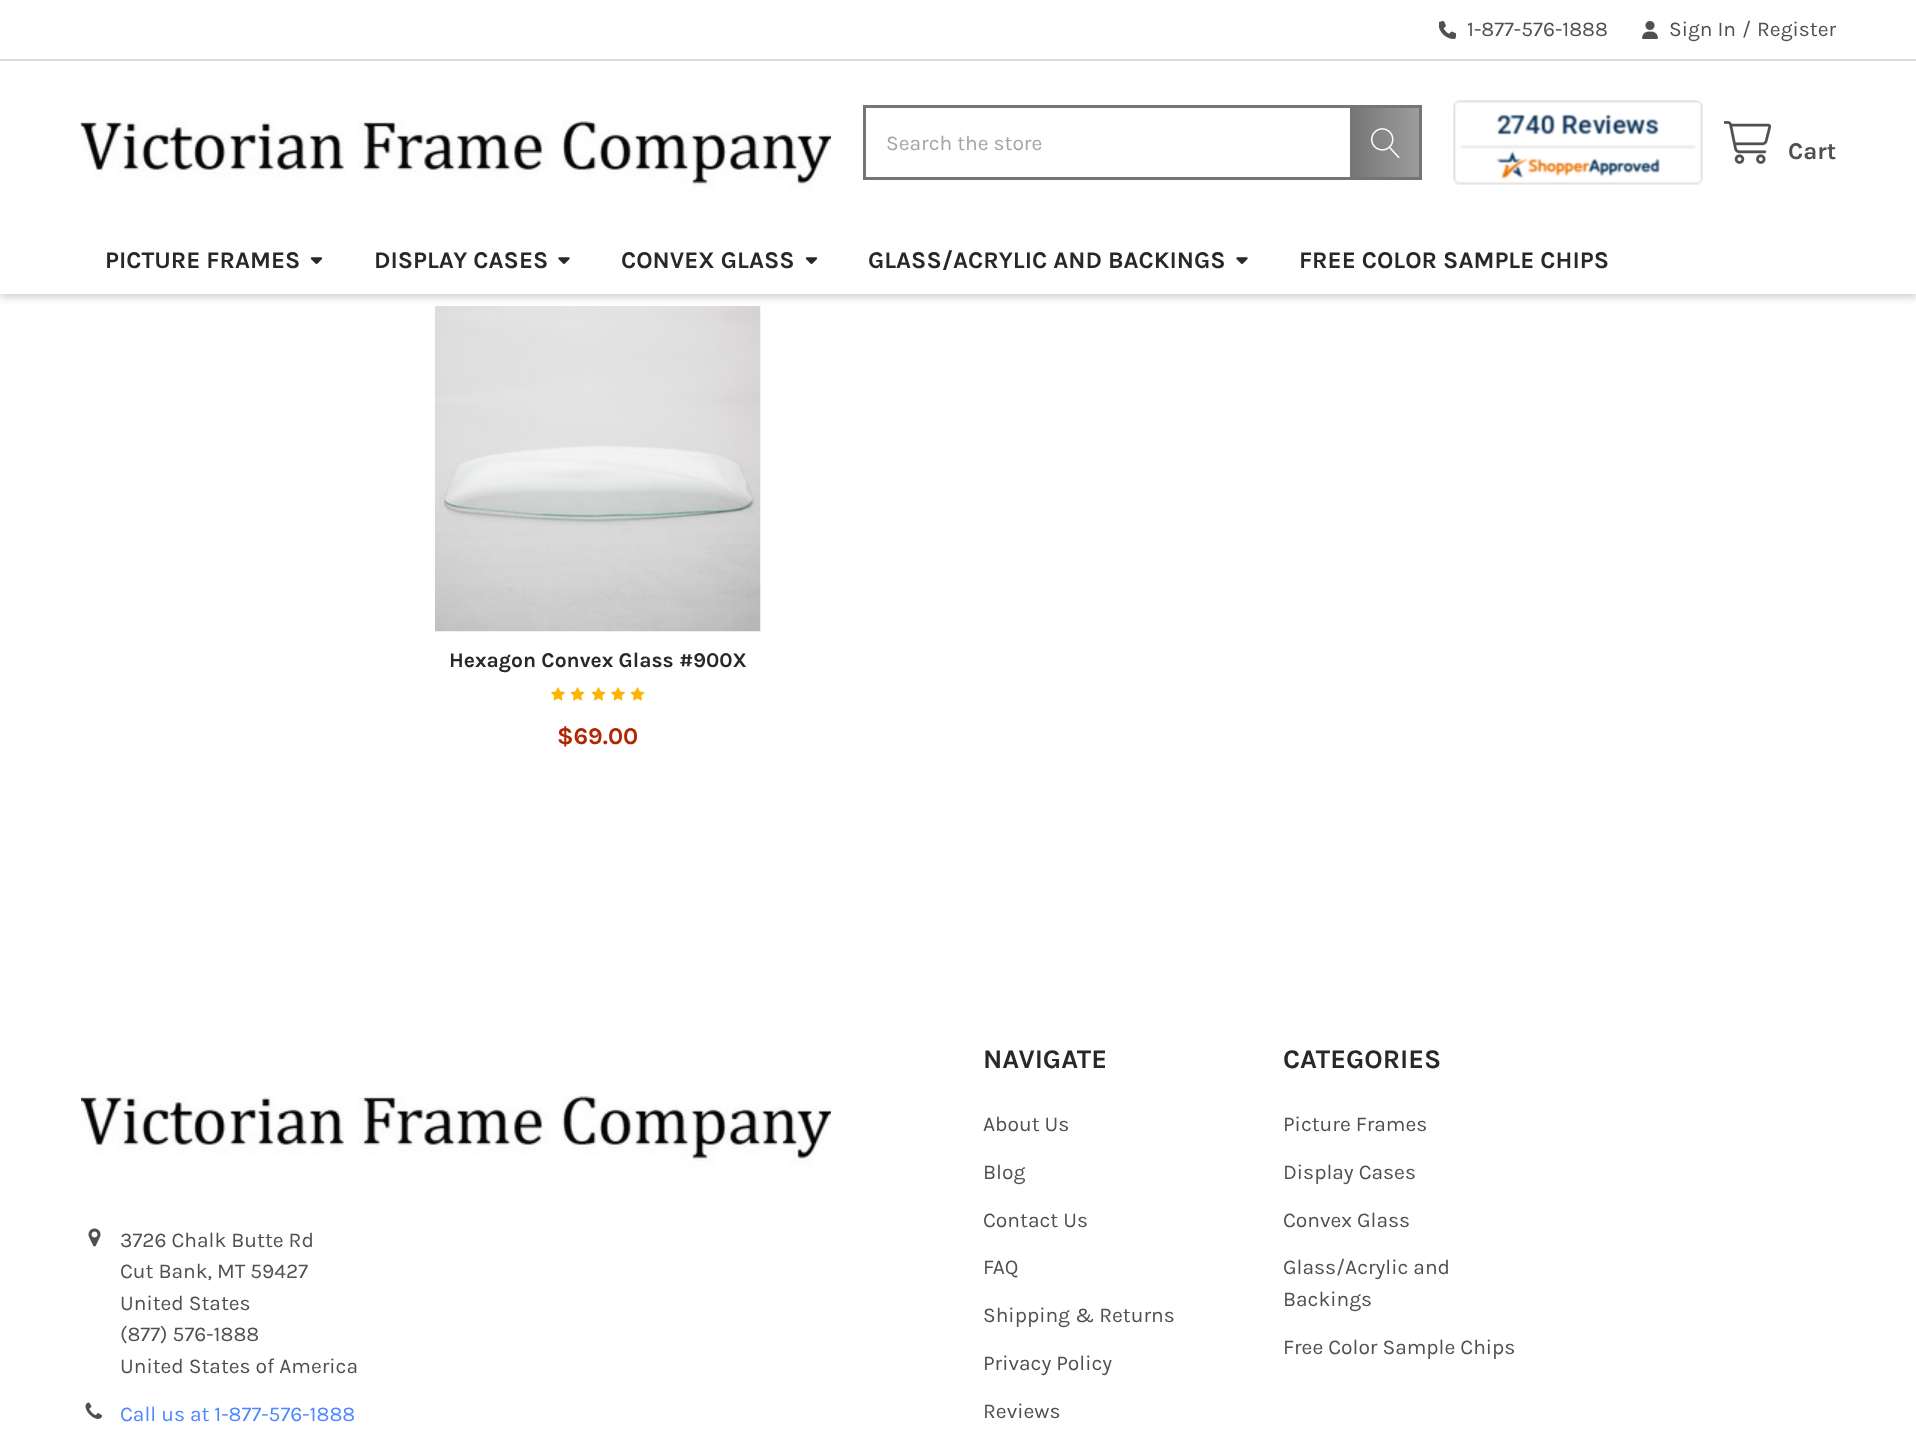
async function draw(canvas) {
	canvas.width = 1916;
	canvas.height = 1456;
	const c = canvas.getContext('2d');
	c.miterLimit = 4;
	c.fontKerning = 'normal';
	async function loadImage(src) {
		const img = new Image();
		img.src = src;
		await img.decode();
		return img;
	}
	let gradient;

	c.fillStyle = '#fff';
	c.fillRect(0, 0, 1916, 1456);
	c.drawImage(await loadImage('img9.png'), 435, 306, 326, 326);
	c.fillStyle = '#00000033';
	c.filter = 'blur(4px)';
	c.beginPath();
	c.rect(0, 3, 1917, 294);
	c.fill();
	c.filter = 'none';
	c.fillStyle = '#fff';
	c.fillRect(0, 0, 1916, 294);
	c.fillStyle = '#dcdcdc';
	c.fillRect(0, 59, 1916, 2);
	c.drawImage(await loadImage('img1.png'), 1439, 21, 17, 18);
	c.font = '21px Karla';
	c.fillStyle = '#505050';
	c.fillText('1-877-576-1888', 1467, 36);
	c.drawImage(await loadImage('img2.png'), 1642, 21, 16, 18);
	for (const [text, x, y] of [
		['Sign In', 1669, 36],
		['/', 1742, 36],
		['Register', 1757, 36],
	]) {
		c.fillText(text, x, y);
	}
	c.drawImage(await loadImage('img3.png'), 80, 119, 751, 73);
	c.strokeStyle = '#757575';
	c.lineWidth = 3;
	c.strokeRect(864.5, 106.5, 556, 72);
	c.fillStyle = '#a5a5a5';
	c.fillText('Search the store', 886, 150);
	gradient = c.createLinearGradient(1350, 143, 1422, 143);
	gradient.addColorStop(0, '#757575');
	gradient.addColorStop(1, '#757575b3');
	c.fillStyle = gradient;
	c.fillRect(1350, 108, 69, 69);
	c.drawImage(await loadImage('img4.png'), 1371, 128, 29, 31);
	c.drawImage(await loadImage('img5.png'), 1453, 100, 250, 85);
	c.drawImage(await loadImage('img6.png'), 1724, 121, 47, 43);
	c.font = 'bold 24px Karla';
	c.fillStyle = '#505050';
	c.fillText('Cart', 1788, 159);
	c.fillStyle = '#282828';
	c.fillText('PICTURE FRAMES', 105, 268);
	c.drawImage(await loadImage('img7.png'), 310, 257, 13, 7);
	c.fillText('DISPLAY CASES', 374, 268);
	c.drawImage(await loadImage('img8.png'), 558, 257, 12, 7);
	c.fillText('CONVEX GLASS', 621, 268);
	c.drawImage(await loadImage('img7.png'), 805, 257, 13, 7);
	c.fillText('GLASS/ACRYLIC AND BACKINGS', 868, 268);
	c.drawImage(await loadImage('img8.png'), 1236, 257, 12, 7);
	c.fillText('FREE COLOR SAMPLE CHIPS', 1299, 268);
	c.font = 'bold 21px Karla';
	c.fillText('Hexagon Convex Glass #900X', 449, 667);
	c.drawImage(await loadImage('img10.png'), 551, 687, 14, 14);
	c.drawImage(await loadImage('img11.png'), 570, 687, 15, 14);
	c.drawImage(await loadImage('img11.png'), 591, 687, 15, 14);
	c.drawImage(await loadImage('img10.png'), 611, 687, 14, 14);
	c.drawImage(await loadImage('img11.png'), 630, 687, 15, 14);
	c.font = 'bold 24px Karla';
	c.fillStyle = '#b12704';
	c.fillText('$69.00', 557, 744);
	c.drawImage(await loadImage('img12.png'), 81, 1094, 750, 73);
	c.drawImage(await loadImage('img13.png'), 88, 1228, 13, 19);
	c.font = '21px Karla';
	c.fillStyle = '#505050';
	for (const [text, x, y] of [
		['3726 Chalk Butte Rd', 120, 1247],
		['Cut Bank, MT 59427', 120, 1278],
		['United States', 120, 1310],
		['(877) 576-1888', 120, 1341],
		['United States of America', 120, 1373],
	]) {
		c.fillText(text, x, y);
	}
	c.drawImage(await loadImage('img14.png'), 85, 1402, 17, 17);
	c.fillStyle = '#4d88ff';
	c.fillText('Call us at 1-877-576-1888', 120, 1421);
	c.font = 'bold 27px Karla';
	c.fillStyle = '#282828';
	c.fillText('NAVIGATE', 983, 1068);
	c.font = '21px Karla';
	c.fillStyle = '#505050';
	for (const [text, x, y] of [
		['About Us', 983, 1131],
		['Blog', 983, 1179],
		['Contact Us', 983, 1227],
		['FAQ', 983, 1274],
		['Shipping & Returns', 983, 1322],
		['Privacy Policy', 983, 1370],
		['Reviews', 983, 1418],
	]) {
		c.fillText(text, x, y);
	}
	c.font = 'bold 27px Karla';
	c.fillStyle = '#282828';
	c.fillText('CATEGORIES', 1283, 1068);
	c.font = '21px Karla';
	c.fillStyle = '#505050';
	for (const [text, x, y] of [
		['Picture Frames', 1283, 1131],
		['Display Cases', 1283, 1179],
		['Convex Glass', 1283, 1227],
		['Glass/Acrylic and', 1283, 1274],
		['Backings', 1283, 1306],
		['Free Color Sample Chips', 1283, 1354],
	]) {
		c.fillText(text, x, y);
	}
}

draw(document.querySelector('canvas'));
